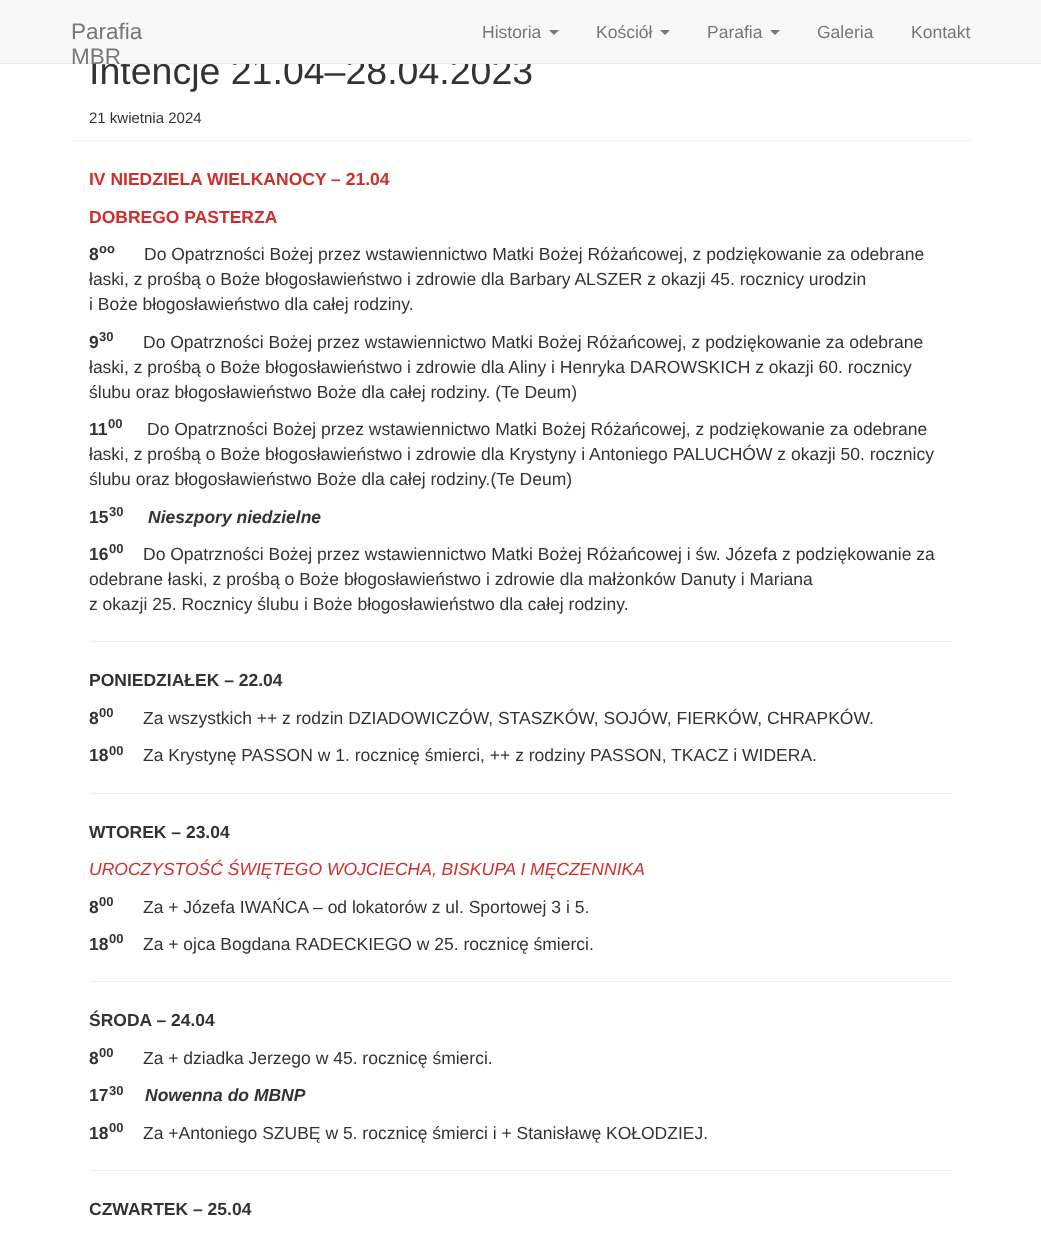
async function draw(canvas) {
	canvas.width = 1041;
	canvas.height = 1238;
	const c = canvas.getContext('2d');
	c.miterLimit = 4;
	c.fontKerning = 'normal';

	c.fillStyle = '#fff';
	c.fillRect(0, 0, 1041, 1238);
	c.font = '37.5px Liberation Sans';
	c.fillStyle = '#333';
	c.fillText('Intencje 21.04–28.04.2023', 89, 84);
	c.fillStyle = '#f8f8f8';
	c.fillRect(0, 0, 1041, 63);
	c.fillStyle = '#e7e7e7';
	c.fillRect(0, 63, 1041, 1);
	c.font = '22.5px Liberation Sans';
	c.fillStyle = '#777';
	c.fillText('Parafia', 71, 39);
	c.fillText('MBR', 71, 64);
	c.font = '17.5px Liberation Sans';
	c.fillText('Historia', 482, 38);
	c.beginPath();
	c.moveTo(549, 30);
	c.lineTo(559, 30);
	c.lineTo(554, 35);
	c.closePath();
	c.fill();
	c.fillText('Kościół', 596, 38);
	c.beginPath();
	c.moveTo(660, 30);
	c.lineTo(670, 30);
	c.lineTo(665, 35);
	c.closePath();
	c.fill();
	c.fillText('Parafia', 707, 38);
	c.beginPath();
	c.moveTo(770, 30);
	c.lineTo(780, 30);
	c.lineTo(775, 35);
	c.closePath();
	c.fill();
	c.fillText('Galeria', 817, 38);
	c.fillText('Kontakt', 911, 38);
	c.fillStyle = '#eee';
	c.fillRect(71, 140, 900, 1);
	c.font = '15px Liberation Sans';
	c.fillStyle = '#333';
	c.fillText('21 kwietnia 2024', 89, 123);
	c.font = 'bold 17.5px Liberation Sans';
	c.fillStyle = '#cf2e2e';
	c.fillText('IV NIEDZIELA WIELKANOCY – 21.04', 89, 185);
	c.fillText('DOBREGO PASTERZA', 89, 223);
	c.fillStyle = '#333';
	c.fillText('8', 89, 260);
	c.font = 'bold 13px Liberation Sans';
	c.fillText('oo', 99, 253);
	c.font = '17.5px Liberation Sans';
	for (const [text, x, y] of [
		['Do Opatrzności Bożej przez wstawiennictwo Matki Bożej Różańcowej, z podziękowanie za odebrane', 144, 260],
		['łaski, z prośbą o Boże błogosławieństwo i zdrowie dla Barbary ALSZER z okazji 45. rocznicy urodzin', 89, 285],
		['i Boże błogosławieństwo dla całej rodziny.', 89, 310],
	]) {
		c.fillText(text, x, y);
	}
	c.font = 'bold 17.5px Liberation Sans';
	c.fillText('9', 89, 348);
	c.font = 'bold 13px Liberation Sans';
	c.fillText('30', 99, 341);
	c.font = '17.5px Liberation Sans';
	for (const [text, x, y] of [
		['Do Opatrzności Bożej przez wstawiennictwo Matki Bożej Różańcowej, z podziękowanie za odebrane', 143, 348],
		['łaski, z prośbą o Boże błogosławieństwo i zdrowie dla Aliny i Henryka DAROWSKICH z okazji 60. rocznicy', 89, 373],
		['ślubu oraz błogosławieństwo Boże dla całej rodziny. (Te Deum)', 89, 398],
	]) {
		c.fillText(text, x, y);
	}
	c.font = 'bold 17.5px Liberation Sans';
	c.fillText('11', 89, 435);
	c.font = 'bold 13px Liberation Sans';
	c.fillText('00', 108, 428);
	c.font = '17.5px Liberation Sans';
	for (const [text, x, y] of [
		['Do Opatrzności Bożej przez wstawiennictwo Matki Bożej Różańcowej, z podziękowanie za odebrane', 147, 435],
		['łaski, z prośbą o Boże błogosławieństwo i zdrowie dla Krystyny i Antoniego PALUCHÓW z okazji 50. rocznicy', 89, 460],
		['ślubu oraz błogosławieństwo Boże dla całej rodziny.(Te Deum)', 89, 485],
	]) {
		c.fillText(text, x, y);
	}
	c.font = 'bold 17.5px Liberation Sans';
	c.fillText('15', 89, 523);
	c.font = 'bold 13px Liberation Sans';
	c.fillText('30', 109, 516);
	c.font = 'italic bold 17.5px Liberation Sans';
	c.fillText('Nieszpory niedzielne', 148, 523);
	c.font = 'bold 17.5px Liberation Sans';
	c.fillText('16', 89, 560);
	c.font = 'bold 13px Liberation Sans';
	c.fillText('00', 109, 553);
	c.font = '17.5px Liberation Sans';
	for (const [text, x, y] of [
		['Do Opatrzności Bożej przez wstawiennictwo Matki Bożej Różańcowej i św. Józefa z podziękowanie za', 143, 560],
		['odebrane łaski, z prośbą o Boże błogosławieństwo i zdrowie dla małżonków Danuty i Mariana', 89, 585],
		['z okazji 25. Rocznicy ślubu i Boże błogosławieństwo dla całej rodziny.', 89, 610],
	]) {
		c.fillText(text, x, y);
	}
	c.fillStyle = '#eee';
	c.fillRect(90, 641, 863, 1);
	c.font = 'bold 17.5px Liberation Sans';
	c.fillStyle = '#333';
	c.fillText('PONIEDZIAŁEK – 22.04', 89, 686);
	c.fillText('8', 89, 724);
	c.font = 'bold 13px Liberation Sans';
	c.fillText('00', 99, 717);
	c.font = '17.5px Liberation Sans';
	c.fillText('Za wszystkich ++ z rodzin DZIADOWICZÓW, STASZKÓW, SOJÓW, FIERKÓW, CHRAPKÓW.', 143, 724);
	c.font = 'bold 17.5px Liberation Sans';
	c.fillText('18', 89, 761);
	c.font = 'bold 13px Liberation Sans';
	c.fillText('00', 109, 755);
	c.font = '17.5px Liberation Sans';
	c.fillText('Za Krystynę PASSON w 1. rocznicę śmierci, ++ z rodziny PASSON, TKACZ i WIDERA.', 143, 761);
	c.fillStyle = '#eee';
	c.fillRect(90, 793, 863, 1);
	c.font = 'bold 17.5px Liberation Sans';
	c.fillStyle = '#333';
	c.fillText('WTOREK – 23.04', 89, 838);
	c.font = 'italic 17.5px Liberation Sans';
	c.fillStyle = '#cf2e2e';
	c.fillText('UROCZYSTOŚĆ ŚWIĘTEGO WOJCIECHA, BISKUPA I MĘCZENNIKA', 89, 875);
	c.font = 'bold 17.5px Liberation Sans';
	c.fillStyle = '#333';
	c.fillText('8', 89, 913);
	c.font = 'bold 13px Liberation Sans';
	c.fillText('00', 99, 906);
	c.font = '17.5px Liberation Sans';
	c.fillText('Za + Józefa IWAŃCA – od lokatorów z ul. Sportowej 3 i 5.', 143, 913);
	c.font = 'bold 17.5px Liberation Sans';
	c.fillText('18', 89, 950);
	c.font = 'bold 13px Liberation Sans';
	c.fillText('00', 109, 943);
	c.font = '17.5px Liberation Sans';
	c.fillText('Za + ojca Bogdana RADECKIEGO w 25. rocznicę śmierci.', 143, 950);
	c.fillStyle = '#eee';
	c.fillRect(90, 981, 863, 1);
	c.font = 'bold 17.5px Liberation Sans';
	c.fillStyle = '#333';
	c.fillText('ŚRODA – 24.04', 89, 1026);
	c.fillText('8', 89, 1064);
	c.font = 'bold 13px Liberation Sans';
	c.fillText('00', 99, 1057);
	c.font = '17.5px Liberation Sans';
	c.fillText('Za + dziadka Jerzego w 45. rocznicę śmierci.', 143, 1064);
	c.font = 'bold 17.5px Liberation Sans';
	c.fillText('17', 89, 1101);
	c.font = 'bold 13px Liberation Sans';
	c.fillText('30', 109, 1095);
	c.font = 'italic bold 17.5px Liberation Sans';
	c.fillText('Nowenna do MBNP', 145, 1101);
	c.font = 'bold 17.5px Liberation Sans';
	c.fillText('18', 89, 1139);
	c.font = 'bold 13px Liberation Sans';
	c.fillText('00', 109, 1132);
	c.font = '17.5px Liberation Sans';
	c.fillText('Za +Antoniego SZUBĘ w 5. rocznicę śmierci i + Stanisławę KOŁODZIEJ.', 143, 1139);
	c.fillStyle = '#eee';
	c.fillRect(90, 1170, 863, 1);
	c.font = 'bold 17.5px Liberation Sans';
	c.fillStyle = '#333';
	c.fillText('CZWARTEK – 25.04', 89, 1215);
}

draw(document.querySelector('canvas'));
